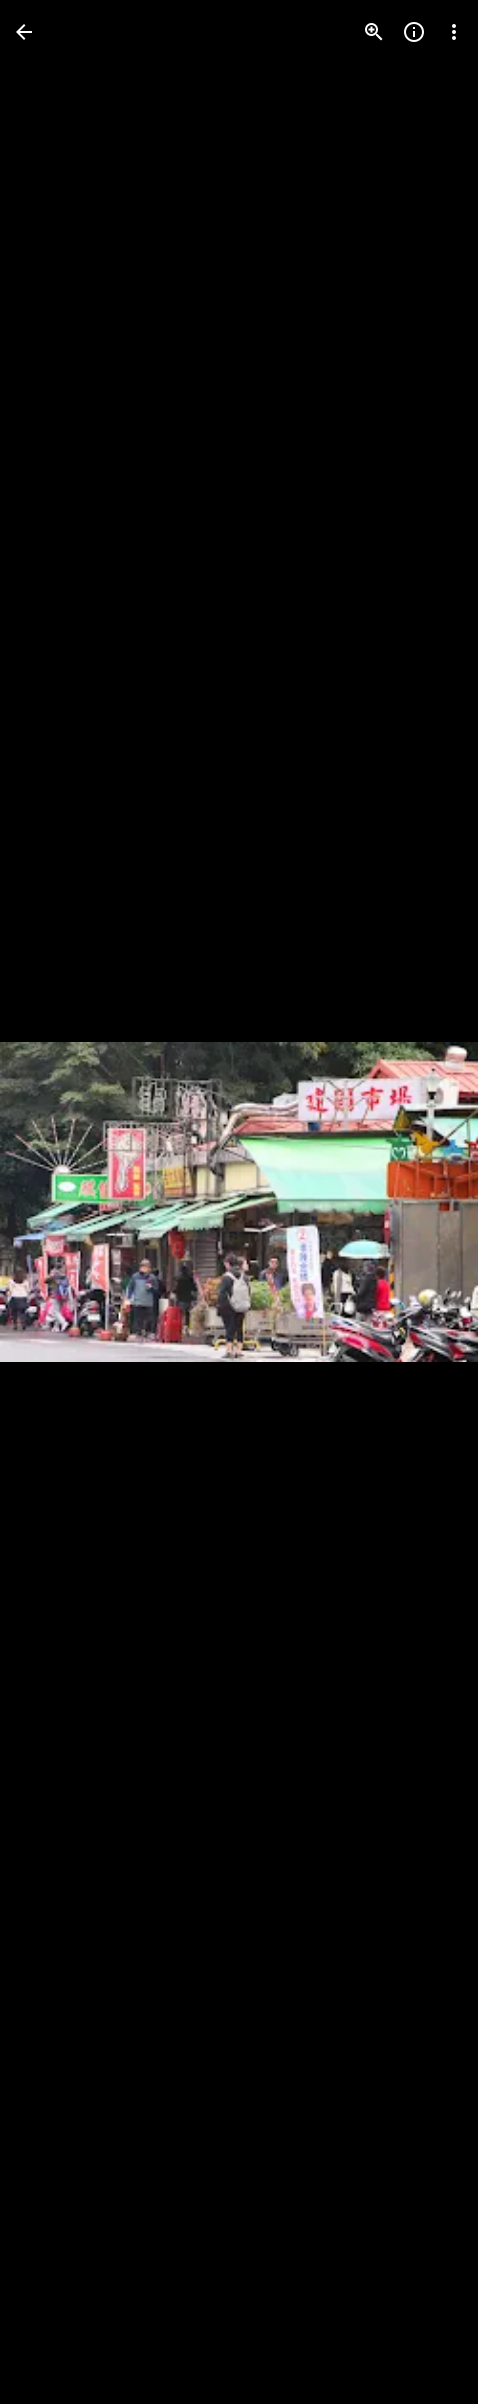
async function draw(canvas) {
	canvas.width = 478;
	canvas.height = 2404;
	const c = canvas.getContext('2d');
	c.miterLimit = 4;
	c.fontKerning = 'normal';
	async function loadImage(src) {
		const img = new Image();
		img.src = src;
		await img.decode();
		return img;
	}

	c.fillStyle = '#000';
	c.fillRect(0, 0, 478, 2404);
	c.drawImage(await loadImage('img1.png'), 16, 24, 16, 16);
	c.drawImage(await loadImage('img2.png'), 365, 23, 18, 18);
	c.drawImage(await loadImage('img3.png'), 404, 22, 20, 20);
	c.drawImage(await loadImage('img4.png'), 452, 24, 4, 16);
	c.drawImage(await loadImage('img5.png'), 0, 1042, 478, 320);
}

draw(document.querySelector('canvas'));
